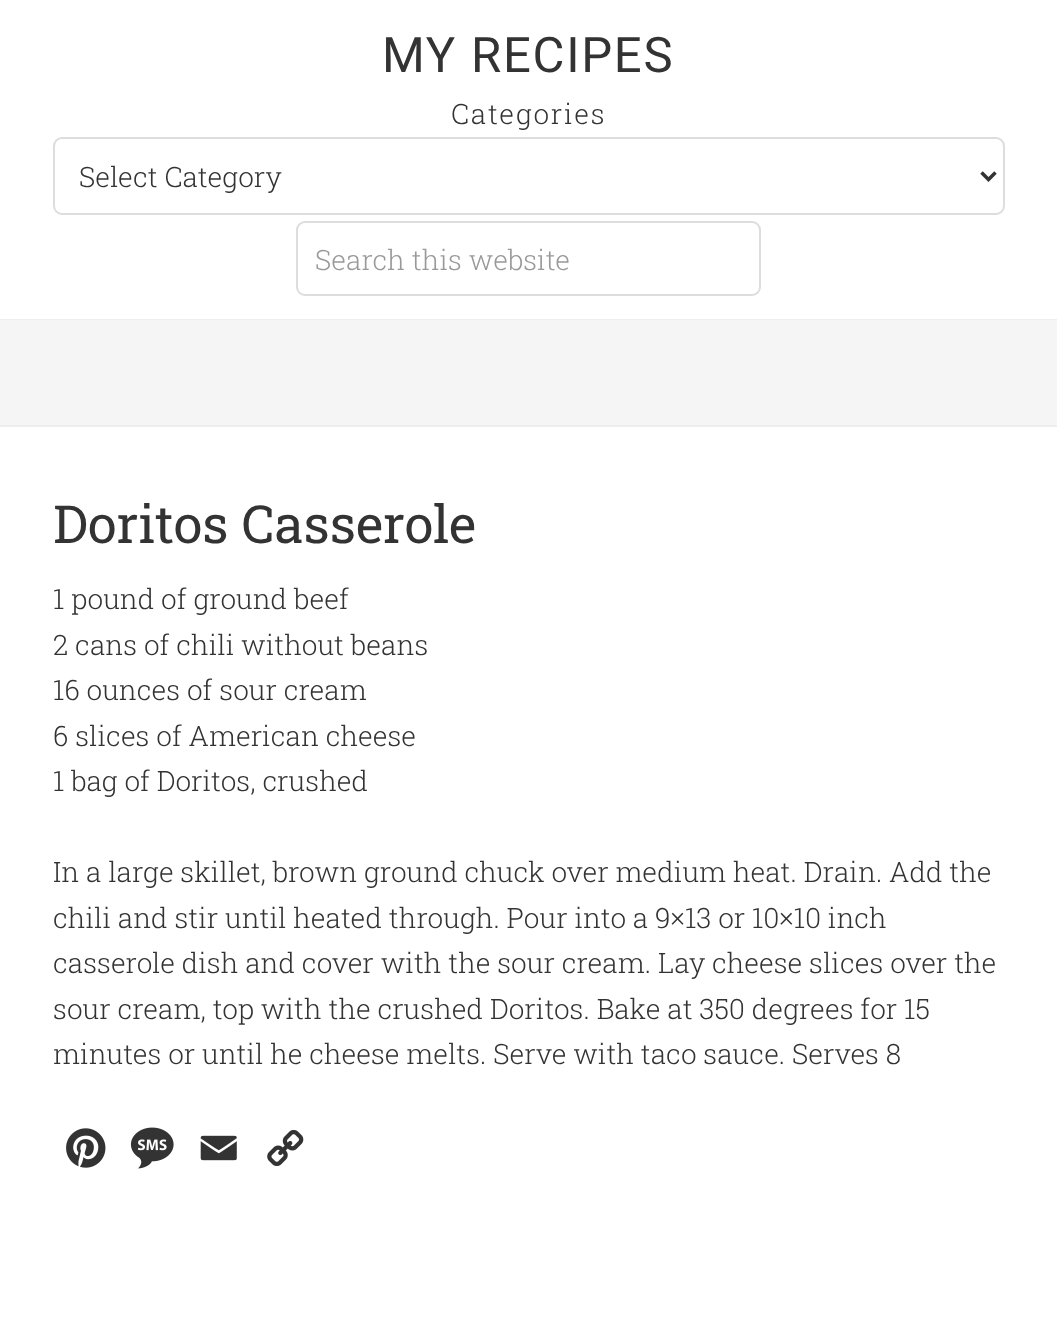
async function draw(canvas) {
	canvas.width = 1057;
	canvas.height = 1324;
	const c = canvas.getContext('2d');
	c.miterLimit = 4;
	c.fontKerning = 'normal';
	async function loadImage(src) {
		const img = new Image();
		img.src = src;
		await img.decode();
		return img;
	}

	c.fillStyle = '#fff';
	c.fillRect(0, 0, 1057, 1324);
	c.fillStyle = '#eee';
	c.fillRect(0, 319, 1057, 1);
	c.letterSpacing = '1.75px';
	c.font = '49px Roboto';
	c.fillStyle = '#333';
	c.fillText('MY RECIPES', 382, 72);
	c.font = '300 28px Roboto Slab';
	c.fillText('Categories', 451, 124);
	c.beginPath();
	c.roundRect(54, 138, 950, 76, 8);
	c.strokeStyle = '#ddd';
	c.lineWidth = 2;
	c.stroke();
	c.beginPath();
	c.moveTo(981.5, 172.5);
	c.lineTo(988.5, 179.5);
	c.lineTo(995.5, 172.5);
	c.strokeStyle = '#333';
	c.lineWidth = 3.5;
	c.stroke();
	c.letterSpacing = '0px';
	c.fillText('Select Category', 79, 187);
	c.beginPath();
	c.roundRect(297, 222, 463, 73, 8);
	c.strokeStyle = '#ddd';
	c.lineWidth = 2;
	c.stroke();
	c.fillStyle = '#999';
	c.fillText('Search this website', 315, 270);
	c.fillStyle = '#f5f5f5';
	c.fillRect(0, 320, 1057, 105);
	c.fillStyle = '#eee';
	c.fillRect(0, 425, 1057, 2);
	c.font = '52.5px Roboto Slab';
	c.fillStyle = '#333';
	c.fillText('Doritos Casserole', 53, 543);
	c.font = '300 28px Roboto Slab';
	for (const [text, x, y] of [
		['1 pound of ground beef', 53, 609],
		['2 cans of chili without beans', 53, 655],
		['16 ounces of sour cream', 53, 700],
		['6 slices of American cheese', 53, 746],
		['1 bag of Doritos, crushed', 53, 791],
		['In a large skillet, brown ground chuck over medium heat. Drain. Add the', 53, 882],
		['chili and stir until heated through. Pour into a 9×13 or 10×10 inch', 53, 928],
		['casserole dish and cover with the sour cream. Lay cheese slices over the', 53, 973],
		['sour cream, top with the crushed Doritos. Bake at 350 degrees for 15', 53, 1019],
		['minutes or until he cheese melts. Serve with taco sauce. Serves 8', 53, 1064],
	]) {
		c.fillText(text, x, y);
	}
	c.drawImage(await loadImage('img1.png'), 66, 1128, 40, 40);
	c.drawImage(await loadImage('img2.png'), 130, 1127, 44, 42);
	c.drawImage(await loadImage('img3.png'), 200, 1135, 37, 26);
	c.drawImage(await loadImage('img4.png'), 267, 1130, 37, 36);
}

draw(document.querySelector('canvas'));
